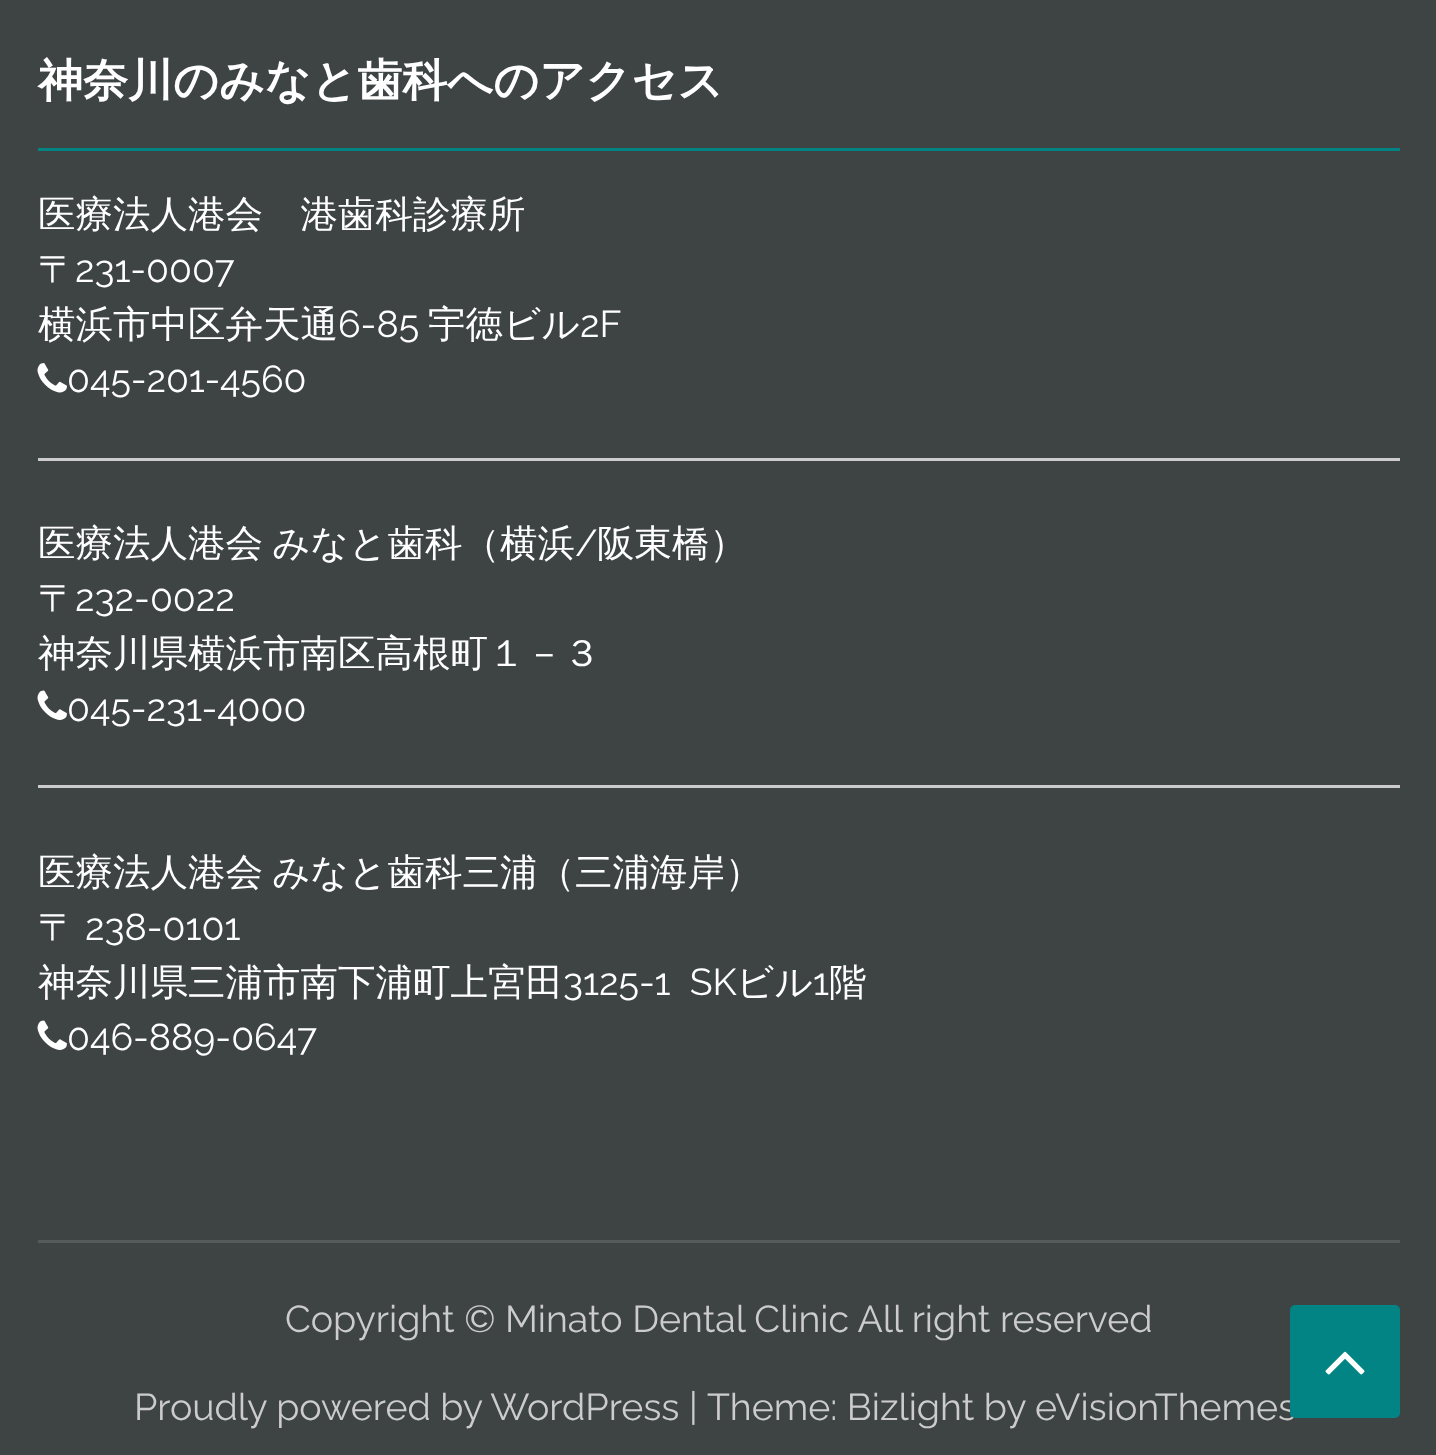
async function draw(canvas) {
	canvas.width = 1436;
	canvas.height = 1455;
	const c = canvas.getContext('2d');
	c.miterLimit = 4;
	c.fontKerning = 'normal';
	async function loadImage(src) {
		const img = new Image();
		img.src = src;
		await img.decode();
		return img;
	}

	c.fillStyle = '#3e4444';
	c.fillRect(0, 0, 1436, 1455);
	c.fillStyle = '#555b5b';
	c.fillRect(38, 1240, 1362, 3);
	c.fillStyle = '#028484';
	c.fillRect(38, 148, 1362, 3);
	c.font = 'bold 45px WenQuanYi Zen Hei';
	c.fillStyle = '#fff';
	c.fillText('神奈川のみなと歯科へのアクセス', 38, 96);
	c.font = '500 37.5px WenQuanYi Zen Hei';
	c.fillText('医療法人港会　港歯科診療所', 38, 227);
	c.fillText('〒', 38, 282);
	c.font = '100 37.5px Raleway';
	c.fillText('231-0007', 75, 282);
	c.font = '500 37.5px WenQuanYi Zen Hei';
	c.fillText('横浜市中区弁天通', 38, 337);
	c.font = '100 37.5px Raleway';
	c.fillText('6-85', 338, 337);
	c.font = '500 37.5px WenQuanYi Zen Hei';
	c.fillText('宇徳ビル', 428, 337);
	c.font = '100 37.5px Raleway';
	c.fillText('2F', 580, 337);
	c.drawImage(await loadImage('img1.png'), 37, 363, 30, 30);
	c.fillText('045-201-4560', 67, 392);
	c.fillStyle = '#ccc';
	c.fillRect(38, 458, 1362, 3);
	c.wordSpacing = '-2px';
	c.font = '500 37.5px WenQuanYi Zen Hei';
	c.fillStyle = '#fff';
	c.fillText('医療法人港会 みなと歯科（横浜', 38, 556);
	c.wordSpacing = '0px';
	c.font = '100 37.5px Raleway';
	c.fillText('/', 575, 556);
	c.font = '500 37.5px WenQuanYi Zen Hei';
	c.fillText('阪東橋）', 597, 556);
	c.fillText('〒', 38, 611);
	c.font = '100 37.5px Raleway';
	c.fillText('232-0022', 75, 611);
	c.font = '500 37.5px WenQuanYi Zen Hei';
	c.fillText('神奈川県横浜市南区高根町１－３', 38, 666);
	c.drawImage(await loadImage('img2.png'), 37, 690, 30, 30);
	c.font = '100 37.5px Raleway';
	c.fillText('045-231-4000', 67, 721);
	c.fillStyle = '#ccc';
	c.fillRect(38, 785, 1362, 3);
	c.wordSpacing = '-2px';
	c.font = '500 37.5px WenQuanYi Zen Hei';
	c.fillStyle = '#fff';
	c.fillText('医療法人港会 みなと歯科三浦（三浦海岸）', 38, 885);
	c.wordSpacing = '0px';
	c.fillText('〒', 38, 940);
	c.font = '100 37.5px Raleway';
	c.fillText('238-0101', 85, 940);
	c.font = '500 37.5px WenQuanYi Zen Hei';
	c.fillText('神奈川県三浦市南下浦町上宮田', 38, 995);
	c.font = '100 37.5px Raleway';
	c.fillText('3125-1  SK', 563, 995);
	c.font = '500 37.5px WenQuanYi Zen Hei';
	c.fillText('ビル', 736, 995);
	c.font = '100 37.5px Raleway';
	c.fillText('1', 813, 995);
	c.font = '500 37.5px WenQuanYi Zen Hei';
	c.fillText('階', 829, 995);
	c.drawImage(await loadImage('img2.png'), 37, 1020, 30, 30);
	c.font = '100 37.5px Raleway';
	c.fillText('046-889-0647', 67, 1050);
	c.fillStyle = '#ccc';
	for (const [text, x, y] of [
		['Copyright © Minato Dental Clinic All right reserved', 285, 1332],
		['Proudly powered by WordPress |', 134, 1420],
		['Theme: Bizlight by eVisionThemes', 707, 1420],
	]) {
		c.fillText(text, x, y);
	}
	c.fillStyle = '#028484';
	c.beginPath();
	c.roundRect(1290, 1305, 110, 113, 5);
	c.fill();
	c.drawImage(await loadImage('img3.png'), 1325, 1351, 40, 24);
}

draw(document.querySelector('canvas'));
